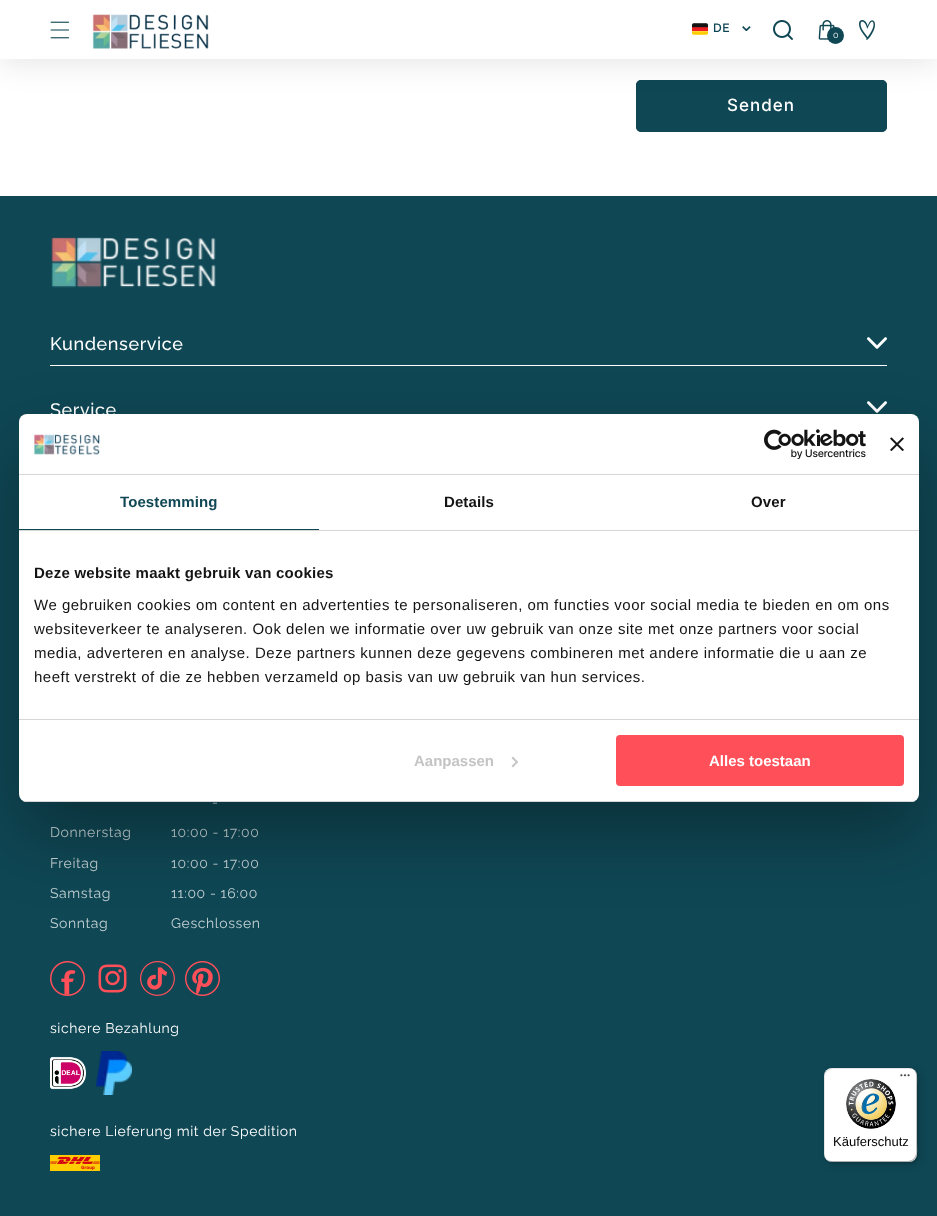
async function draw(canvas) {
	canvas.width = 937;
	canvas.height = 1216;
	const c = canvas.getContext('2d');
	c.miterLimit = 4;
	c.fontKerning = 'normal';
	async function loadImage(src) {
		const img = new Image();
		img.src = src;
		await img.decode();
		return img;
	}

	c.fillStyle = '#fff';
	c.fillRect(0, 0, 937, 1216);
	c.fillStyle = '#104754';
	c.beginPath();
	c.roundRect(636, 80, 251, 52, 5);
	c.fill();
	c.beginPath();
	c.roundRect(636.5, 80.5, 250, 51, 4.5);
	c.strokeStyle = '#104754';
	c.stroke();
	c.fillStyle = '#0000001a';
	c.filter = 'blur(15px)';
	c.beginPath();
	c.rect(0, 4, 937, 59);
	c.fill();
	c.filter = 'none';
	c.fillStyle = '#fff';
	c.fillRect(0, 0, 937, 59);
	c.drawImage(await loadImage('img1.png'), 50, 21, 20, 18);
	c.drawImage(await loadImage('img2.png'), 92, 14, 117, 35);
	c.drawImage(await loadImage('img3.png'), 692, 23, 16, 12);
	c.letterSpacing = '0.6px';
	c.font = '600 12px Raleway';
	c.fillStyle = '#104754';
	c.fillText('DE', 713, 32);
	c.font = '20px DejaVu Sans';
	c.fillText('⌄', 738, 31);
	c.drawImage(await loadImage('img4.png'), 773, 20, 20, 20);
	c.drawImage(await loadImage('img5.png'), 859, 20, 16, 20);
	c.drawImage(await loadImage('img6.png'), 818, 20, 17, 20);
	c.beginPath();
	c.arc(835.5, 35.5, 8.5, 0, 2 * Math.PI);
	c.fill();
	c.font = '9px Raleway';
	c.fillStyle = '#fff';
	c.fillText('0', 833, 38);
	c.letterSpacing = '1px';
	c.font = '500 17px Inter';
	c.fillText('Senden', 727, 111);
	c.fillStyle = '#0f4754';
	c.fillRect(0, 196, 937, 1020);
	c.drawImage(await loadImage('img7.png'), 51, 237, 165, 51);
	c.fillStyle = '#fff';
	c.fillRect(50, 365, 837, 1);
	c.letterSpacing = '0.6px';
	c.font = '500 18px Raleway';
	c.fillText('Kundenservice', 50, 350);
	c.drawImage(await loadImage('img8.png'), 867, 337, 20, 12);
	c.fillText('Service', 50, 416);
	c.drawImage(await loadImage('img8.png'), 867, 401, 20, 12);
	c.font = '14px Raleway';
	c.fillStyle = '#c3d1d4';
	for (const [text, x, y] of [
		['-', 212, 807],
		['Donnerstag', 50, 837],
		['10:00 - 17:00', 171, 837],
		['Freitag', 50, 868],
		['10:00 - 17:00', 171, 868],
		['Samstag', 50, 898],
		['11:00 - 16:00', 171, 898],
		['Sonntag', 50, 928],
		['Geschlossen', 171, 928],
	]) {
		c.fillText(text, x, y);
	}
	c.drawImage(await loadImage('img9.png'), 50, 961, 35, 35);
	c.drawImage(await loadImage('img10.png'), 98, 964, 29, 29);
	c.drawImage(await loadImage('img11.png'), 140, 961, 35, 35);
	c.drawImage(await loadImage('img12.png'), 185, 961, 35, 35);
	c.fillStyle = '#fff';
	c.fillText('sichere Bezahlung', 50, 1033);
	c.drawImage(await loadImage('img13.png'), 50, 1056, 36, 34);
	c.drawImage(await loadImage('img14.png'), 96, 1051, 36, 44);
	c.fillText('sichere Lieferung mit der Spedition', 50, 1136);
	c.drawImage(await loadImage('img15.png'), 50, 1155, 50, 16);
	c.fillStyle = '#0000004d';
	c.filter = 'blur(34px)';
	c.beginPath();
	c.roundRect(19, 446, 900, 388, 8);
	c.fill();
	c.filter = 'none';
	c.fillStyle = '#fff';
	c.beginPath();
	c.roundRect(19, 414, 900, 388, 8);
	c.fill();
	c.fillStyle = '#d6d6d6';
	c.fillRect(19, 474, 900, 1);
	c.drawImage(await loadImage('img16.png'), 34, 434, 66, 21);
	c.drawImage(await loadImage('img17.png'), 764, 429, 102, 30);
	c.drawImage(await loadImage('img18.png'), 890, 437, 14, 14);
	c.fillRect(19, 530, 900, 1);
	c.fillStyle = '#0f4753';
	c.fillRect(19, 529, 300, 1);
	c.letterSpacing = '0.1px';
	c.font = 'bold 15px Liberation Sans';
	c.fillStyle = '#104754';
	c.fillText('Toestemming', 120, 507);
	c.fillStyle = '#141414';
	c.fillText('Details', 444, 507);
	c.fillText('Over', 751, 507);
	c.fillStyle = '#d6d6d6';
	c.fillRect(19, 719, 900, 1);
	c.letterSpacing = '0.25px';
	c.fillStyle = '#141414';
	c.fillText('Deze website maakt gebruik van cookies', 34, 578);
	c.letterSpacing = '0.5px';
	c.font = '15px Liberation Sans';
	for (const [text, x, y] of [
		['We gebruiken cookies om content en advertenties te personaliseren, om functies voor social media te bieden en om ons', 34, 610],
		['websiteverkeer te analyseren. Ook delen we informatie over uw gebruik van onze site met onze partners voor social', 34, 634],
		['media, adverteren en analyse. Deze partners kunnen deze gegevens combineren met andere informatie die u aan ze', 34, 658],
		['heeft verstrekt of die ze hebben verzameld op basis van uw gebruik van hun services.', 34, 682],
	]) {
		c.fillText(text, x, y);
	}
	c.save();
	c.beginPath();
	c.roundRect(19, 414, 900, 388, 8);
	c.clip();
	c.fillStyle = '#d6d6d6';
	c.fillRect(19, 801, 900, 1);
	c.restore();
	c.letterSpacing = '0px';
	c.font = 'bold 15px Liberation Sans';
	c.fillStyle = '#c4c4c4';
	c.fillText('Aanpassen', 414, 766);
	c.beginPath();
	c.moveTo(513, 756.5);
	c.lineTo(518, 762);
	c.lineTo(517, 763.5);
	c.lineTo(511.5, 758);
	c.closePath();
	c.fill();
	c.beginPath();
	c.moveTo(517, 760.5);
	c.lineTo(518, 762);
	c.lineTo(513, 767.5);
	c.lineTo(511.5, 766);
	c.closePath();
	c.fill();
	c.fillStyle = '#ff4f58';
	c.beginPath();
	c.roundRect(617, 736, 286, 49, 3);
	c.fill();
	c.strokeStyle = '#ff4f58';
	c.lineWidth = 2;
	c.stroke();
	c.fillStyle = '#fff';
	c.fillText('Alles toestaan', 709, 766);
	c.fillStyle = '#00000026';
	c.filter = 'blur(4px)';
	c.beginPath();
	c.roundRect(827, 1071, 93, 94, 8);
	c.fill();
	c.filter = 'none';
	c.filter = 'blur(1px)';
	c.beginPath();
	c.roundRect(825, 1069, 93, 94, 8);
	c.fill();
	c.filter = 'none';
	c.fillStyle = '#fff';
	c.beginPath();
	c.roundRect(824, 1068, 93, 94, 8);
	c.fill();
	c.fillStyle = '#0000001a';
	c.beginPath();
	c.moveTo(833, 1069);
	c.lineTo(910, 1069);
	c.bezierCurveTo(912, 1069, 914, 1070, 916, 1072);
	c.bezierCurveTo(914, 1070, 912, 1068, 909, 1068);
	c.lineTo(832, 1068);
	c.bezierCurveTo(828, 1068, 824, 1072, 824, 1076);
	c.lineTo(824, 1154);
	c.bezierCurveTo(824, 1157, 826, 1159, 828, 1161);
	c.bezierCurveTo(826, 1159, 825, 1157, 825, 1155);
	c.lineTo(825, 1077);
	c.bezierCurveTo(825, 1073, 829, 1069, 833, 1069);
	c.closePath();
	c.fill();
	c.fillStyle = '#00000033';
	c.beginPath();
	c.moveTo(825, 1158);
	c.bezierCurveTo(827, 1160, 829, 1162, 832, 1162);
	c.lineTo(909, 1162);
	c.bezierCurveTo(913, 1162, 917, 1158, 917, 1154);
	c.lineTo(917, 1076);
	c.bezierCurveTo(917, 1073, 915, 1071, 913, 1069);
	c.bezierCurveTo(915, 1071, 916, 1073, 916, 1075);
	c.lineTo(916, 1153);
	c.bezierCurveTo(916, 1157, 912, 1161, 908, 1161);
	c.lineTo(831, 1161);
	c.bezierCurveTo(829, 1161, 827, 1160, 825, 1158);
	c.closePath();
	c.fill();
	c.fillStyle = '#32323233';
	c.beginPath();
	c.moveTo(826, 1159);
	c.bezierCurveTo(827, 1161, 830, 1162, 832, 1162);
	c.lineTo(909, 1162);
	c.bezierCurveTo(913, 1162, 917, 1158, 917, 1154);
	c.lineTo(917, 1076);
	c.bezierCurveTo(917, 1074, 916, 1071, 914, 1070);
	c.bezierCurveTo(915, 1071, 916, 1073, 916, 1075);
	c.lineTo(916, 1153);
	c.bezierCurveTo(916, 1158, 913, 1161, 908, 1161);
	c.lineTo(831, 1161);
	c.bezierCurveTo(829, 1161, 827, 1160, 826, 1159);
	c.closePath();
	c.fill();
	c.fillStyle = '#ffffff4d';
	c.beginPath();
	c.moveTo(908, 1162);
	c.bezierCurveTo(920, 1162, 917, 1149, 917, 1141);
	c.lineTo(917, 1089);
	c.bezierCurveTo(917, 1081, 920, 1068, 908, 1068);
	c.bezierCurveTo(913, 1068, 916, 1071, 916, 1076);
	c.lineTo(916, 1154);
	c.bezierCurveTo(916, 1158, 913, 1162, 908, 1162);
	c.closePath();
	c.fill();
	c.drawImage(await loadImage('img19.png'), 900, 1074, 10, 3);
	c.drawImage(await loadImage('img20.png'), 846, 1079, 50, 50);
	c.font = '13px Liberation Sans';
	c.fillStyle = '#000';
	c.fillText('Käuferschutz', 833, 1146);
}

draw(document.querySelector('canvas'));
